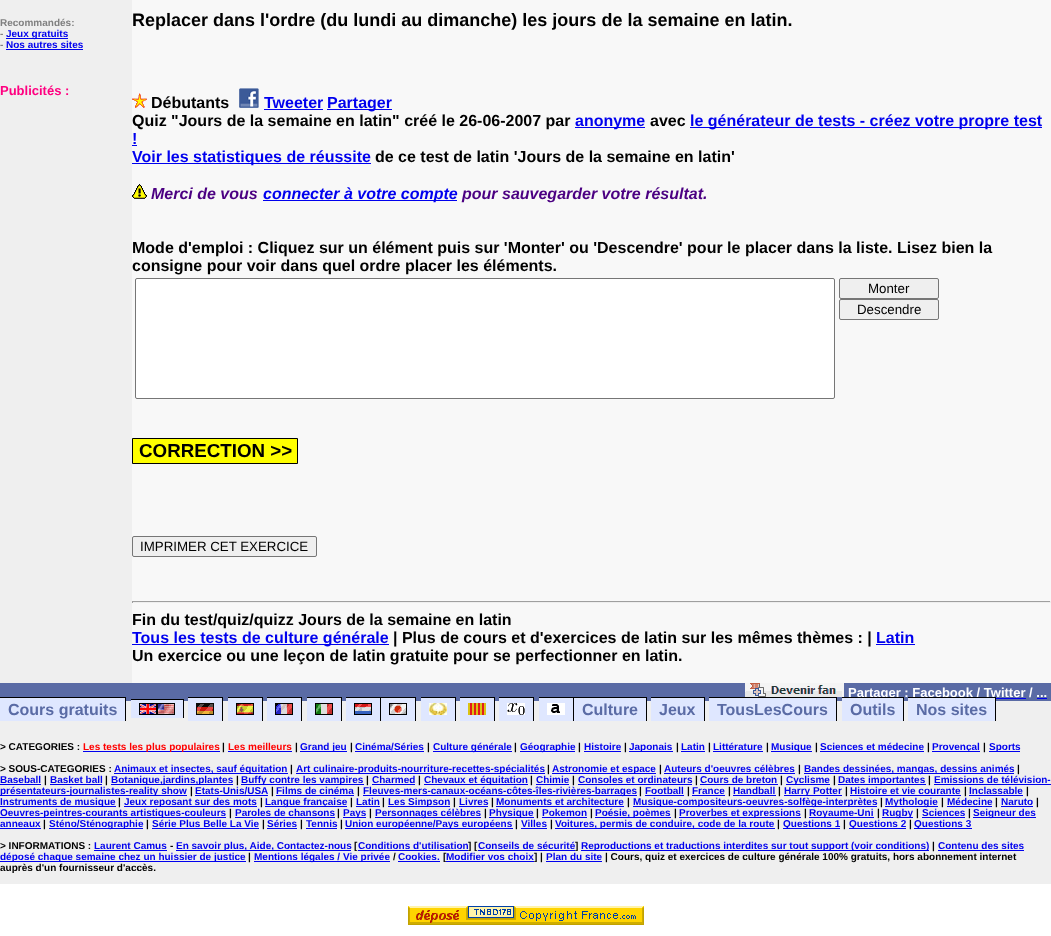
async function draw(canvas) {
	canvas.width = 1051;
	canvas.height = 936;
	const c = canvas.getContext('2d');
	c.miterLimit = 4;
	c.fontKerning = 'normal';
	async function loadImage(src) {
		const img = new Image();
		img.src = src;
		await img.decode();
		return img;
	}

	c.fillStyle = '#fff';
	c.fillRect(0, 0, 1051, 936);
	c.fillStyle = '#efefef';
	c.fillRect(0, 0, 132, 683);
	c.font = 'bold 10px Liberation Sans';
	c.fillStyle = '#808080';
	c.fillText('Recommandés:', 0, 26);
	c.fillText('-', 0, 37);
	c.fillStyle = '#00e';
	c.fillRect(6, 38, 62, 1);
	c.fillText('Jeux gratuits', 6, 37);
	c.fillStyle = '#808080';
	c.fillText('-', 0, 48);
	c.fillStyle = '#00e';
	c.fillText('Nos autres sites', 6, 48);
	c.fillRect(6, 49, 77, 1);
	c.font = 'bold 13px Liberation Sans';
	c.fillStyle = '#ff0080';
	c.fillText('Publicités :', 0, 95);
	c.fillStyle = '#f8f8f8';
	c.fillRect(132, 0, 919, 683);
	c.font = 'bold 18px Liberation Sans';
	c.fillStyle = '#000';
	c.fillText('Replacer dans l\'ordre (du lundi au dimanche) les jours de la semaine en latin.', 132, 26);
	c.drawImage(await loadImage('img1.png'), 132, 93, 15, 15);
	c.font = 'bold 16px Liberation Sans';
	c.fillText('Débutants', 151, 108);
	c.drawImage(await loadImage('img2.png'), 239, 88, 20, 20);
	c.fillStyle = '#00e';
	c.fillText('Tweeter', 264, 108);
	c.fillRect(264, 109, 59, 1);
	c.fillRect(327, 109, 65, 1);
	c.fillText('Partager', 327, 108);
	c.fillStyle = '#000';
	c.fillText('Quiz "Jours de la semaine en latin" créé le 26-06-2007 par', 132, 126);
	c.fillStyle = '#00e';
	c.fillRect(575, 127, 70, 1);
	c.fillText('anonyme', 575, 126);
	c.fillStyle = '#000';
	c.fillText('avec', 650, 126);
	c.fillStyle = '#00e';
	c.fillRect(690, 127, 352, 1);
	c.fillText('le générateur de tests - créez votre propre test', 690, 126);
	c.fillText('!', 132, 144);
	c.fillRect(132, 145, 5, 1);
	c.fillRect(132, 163, 239, 1);
	c.fillText('Voir les statistiques de réussite', 132, 162);
	c.fillStyle = '#000';
	c.fillText('de ce test de latin \'Jours de la semaine en latin\'', 375, 162);
	c.drawImage(await loadImage('img3.png'), 132, 184, 15, 15);
	c.font = 'italic bold 16px Liberation Sans';
	c.fillStyle = '#4b0082';
	c.fillText('Merci de vous', 151, 199);
	c.fillStyle = '#00e';
	c.fillRect(263, 200, 194, 1);
	c.fillText('connecter à votre compte', 263, 199);
	c.fillStyle = '#4b0082';
	c.fillText('pour sauvegarder votre résultat.', 462, 199);
	c.font = 'bold 16px Liberation Sans';
	c.fillStyle = '#000';
	c.fillText('Mode d\'emploi : Cliquez sur un élément puis sur \'Monter\' ou \'Descendre\' pour le placer dans la liste. Lisez bien la', 132, 253);
	c.fillText('consigne pour voir dans quel ordre placer les éléments.', 132, 271);
	c.fillStyle = '#fff';
	c.beginPath();
	c.roundRect(135.5, 278.5, 699, 120, 1.5);
	c.fill();
	c.strokeStyle = '#767676';
	c.stroke();
	c.fillStyle = '#efefef';
	c.beginPath();
	c.roundRect(839.5, 278.5, 99, 20, 1.5);
	c.fill();
	c.stroke();
	c.font = '13.3px Liberation Sans';
	c.fillStyle = '#000';
	c.fillText('Monter', 868, 293);
	c.fillStyle = '#efefef';
	c.beginPath();
	c.roundRect(839.5, 299.5, 99, 20, 1.5);
	c.fill();
	c.stroke();
	c.fillStyle = '#000';
	c.fillText('Descendre', 857, 314);
	c.fillStyle = '#ff0';
	c.beginPath();
	c.rect(132.5, 438.5, 165, 25);
	c.fill();
	c.strokeStyle = '#000';
	c.stroke();
	c.font = 'bold 18.75px Liberation Sans';
	c.fillStyle = '#000';
	c.fillText('CORRECTION >>', 139, 457);
	c.fillStyle = '#efefef';
	c.beginPath();
	c.roundRect(132.5, 536.5, 184, 20, 1.5);
	c.fill();
	c.strokeStyle = '#767676';
	c.stroke();
	c.font = '13.3px Liberation Sans';
	c.fillStyle = '#000';
	c.fillText('IMPRIMER CET EXERCICE', 140, 551);
	for (const [x, y, w, h, color] of [
		[132, 601, 919, 1, '#9f9f9f'],
		[1050, 601, 1, 2, '#eee'],
		[132, 602, 919, 1, '#eee'],
		[132, 601, 1, 2, '#9f9f9f'],
	]) {
		c.fillStyle = color;
		c.fillRect(x, y, w, h);
	}
	c.font = 'bold 16px Liberation Sans';
	c.fillStyle = '#000';
	c.fillText('Fin du test/quiz/quizz Jours de la semaine en latin', 132, 625);
	c.fillStyle = '#00e';
	c.fillRect(132, 644, 257, 1);
	c.fillText('Tous les tests de culture générale', 132, 643);
	c.fillStyle = '#000';
	c.fillText('| Plus de cours et d\'exercices de latin sur les mêmes thèmes : |', 393, 643);
	c.fillStyle = '#00e';
	c.fillText('Latin', 876, 643);
	c.fillRect(876, 644, 39, 1);
	c.fillStyle = '#000';
	c.fillText('Un exercice ou une leçon de latin gratuite pour se perfectionner en latin.', 132, 661);
	c.fillStyle = '#5a6ba5';
	c.fillRect(0, 683, 1051, 18);
	c.drawImage(await loadImage('img4.png'), 745, 683, 99, 14);
	c.font = 'bold 13px Liberation Sans';
	c.fillStyle = '#fff';
	c.fillText('Partager : Facebook / Twitter / ...', 848, 697);
	for (const [x, y, w, h, color] of [
		[996, 698, 30, 1, '#00e'],
		[1037, 698, 10, 1, '#00e'],
		[126, 701, 925, 18, '#efefef'],
		[188, 697, 35, 1, '#000'],
		[0, 719, 1051, 165, '#efefef'],
		[222, 697, 1, 24, '#000'],
		[228, 697, 35, 1, '#000'],
		[262, 697, 1, 24, '#000'],
		[267, 697, 35, 1, '#000'],
		[301, 697, 1, 24, '#000'],
		[307, 697, 35, 1, '#000'],
		[341, 697, 1, 24, '#000'],
		[346, 697, 70, 1, '#000'],
		[380, 697, 1, 24, '#000'],
		[415, 697, 1, 24, '#000'],
		[421, 697, 35, 1, '#000'],
		[455, 697, 1, 24, '#000'],
		[460, 697, 35, 1, '#000'],
		[494, 697, 1, 24, '#000'],
		[499, 697, 35, 1, '#000'],
		[533, 697, 1, 24, '#000'],
		[539, 697, 108, 1, '#000'],
		[131, 699, 53, 1, '#000'],
		[188, 698, 34, 23, '#dfe7ff'],
		[228, 698, 34, 23, '#dfe7ff'],
		[267, 698, 34, 23, '#dfe7ff'],
		[307, 698, 34, 23, '#dfe7ff'],
		[346, 698, 34, 23, '#dfe7ff'],
		[381, 698, 34, 23, '#dfe7ff'],
		[421, 698, 34, 23, '#dfe7ff'],
		[460, 698, 34, 23, '#dfe7ff'],
		[499, 698, 34, 23, '#dfe7ff'],
		[539, 698, 34, 23, '#dfe7ff'],
		[573, 697, 1, 24, '#000'],
		[0, 698, 125, 23, '#dfe7ff'],
	]) {
		c.fillStyle = color;
		c.fillRect(x, y, w, h);
	}
	c.font = 'bold 16px Liberation Sans';
	c.fillStyle = '#5a6ba5';
	c.fillText('Cours gratuits', 8, 715);
	for (const [x, y, w, h, color] of [
		[0, 697, 126, 1, '#000'],
		[125, 697, 1, 24, '#000'],
		[131, 700, 52, 18, '#dfe7ff'],
		[183, 699, 1, 19, '#000'],
	]) {
		c.fillStyle = color;
		c.fillRect(x, y, w, h);
	}
	c.drawImage(await loadImage('img5.png'), 139, 703, 18, 12);
	c.drawImage(await loadImage('img6.png'), 157, 703, 18, 12);
	c.drawImage(await loadImage('img7.png'), 196, 703, 18, 12);
	c.drawImage(await loadImage('img8.png'), 236, 703, 18, 12);
	c.drawImage(await loadImage('img9.png'), 275, 703, 18, 12);
	c.drawImage(await loadImage('img10.png'), 315, 703, 18, 12);
	c.drawImage(await loadImage('img11.png'), 354, 703, 18, 12);
	c.drawImage(await loadImage('img12.png'), 389, 703, 18, 12);
	c.drawImage(await loadImage('img13.png'), 429, 703, 18, 12);
	c.drawImage(await loadImage('img14.png'), 468, 703, 18, 12);
	c.drawImage(await loadImage('img15.png'), 507, 703, 18, 12);
	c.drawImage(await loadImage('img16.png'), 547, 703, 18, 12);
	c.fillStyle = '#dfe7ff';
	c.fillRect(574, 698, 72, 23);
	c.fillStyle = '#5a6ba5';
	c.fillText('Culture', 582, 715);
	c.fillStyle = '#000';
	c.fillRect(646, 697, 1, 24);
	c.fillStyle = '#dfe7ff';
	c.fillRect(651, 698, 53, 23);
	c.fillStyle = '#5a6ba5';
	c.fillText('Jeux', 659, 715);
	for (const [x, y, w, h, color] of [
		[651, 697, 54, 1, '#000'],
		[704, 697, 1, 24, '#000'],
		[709, 698, 127, 23, '#dfe7ff'],
	]) {
		c.fillStyle = color;
		c.fillRect(x, y, w, h);
	}
	c.fillStyle = '#5a6ba5';
	c.fillText('TousLesCours', 717, 715);
	for (const [x, y, w, h, color] of [
		[709, 697, 128, 1, '#000'],
		[836, 697, 1, 24, '#000'],
		[842, 698, 61, 23, '#dfe7ff'],
	]) {
		c.fillStyle = color;
		c.fillRect(x, y, w, h);
	}
	c.fillStyle = '#5a6ba5';
	c.fillText('Outils', 850, 715);
	for (const [x, y, w, h, color] of [
		[842, 697, 62, 1, '#000'],
		[903, 697, 1, 24, '#000'],
		[908, 698, 87, 23, '#dfe7ff'],
	]) {
		c.fillStyle = color;
		c.fillRect(x, y, w, h);
	}
	c.fillStyle = '#5a6ba5';
	c.fillText('Nos sites', 916, 715);
	c.fillStyle = '#000';
	c.fillRect(908, 697, 88, 1);
	c.fillRect(995, 697, 1, 24);
	c.font = 'bold 10px Liberation Sans';
	c.fillText('> CATEGORIES :', 0, 750);
	c.fillStyle = '#00e';
	c.fillRect(83, 751, 137, 1);
	c.fillStyle = '#f00';
	c.fillText('Les tests les plus populaires', 83, 750);
	c.fillStyle = '#000';
	c.fillText('|', 222, 750);
	c.fillStyle = '#f00';
	c.fillText('Les meilleurs', 228, 750);
	c.fillStyle = '#00e';
	c.fillRect(228, 751, 64, 1);
	c.fillStyle = '#000';
	c.fillText('|', 295, 750);
	c.fillStyle = '#00e';
	c.fillRect(300, 751, 47, 1);
	c.fillText('Grand jeu', 300, 750);
	c.fillStyle = '#000';
	c.fillText('|', 350, 750);
	c.fillStyle = '#00e';
	c.fillText('Cinéma/Séries', 355, 750);
	c.fillRect(355, 751, 69, 1);
	c.fillStyle = '#000';
	c.fillText('|', 427, 750);
	c.fillStyle = '#00e';
	c.fillRect(433, 751, 79, 1);
	c.fillText('Culture générale', 433, 750);
	c.fillStyle = '#000';
	c.fillText('|', 514, 750);
	c.fillStyle = '#00e';
	c.fillRect(520, 751, 55, 1);
	c.fillText('Géographie', 520, 750);
	c.fillStyle = '#000';
	c.fillText('|', 578, 750);
	c.fillStyle = '#00e';
	c.fillText('Histoire', 584, 750);
	c.fillRect(584, 751, 37, 1);
	c.fillStyle = '#000';
	c.fillText('|', 624, 750);
	c.fillStyle = '#00e';
	c.fillRect(629, 751, 44, 1);
	c.fillText('Japonais', 629, 750);
	c.fillStyle = '#000';
	c.fillText('|', 676, 750);
	c.fillStyle = '#00e';
	c.fillText('Latin', 681, 750);
	c.fillRect(681, 751, 24, 1);
	c.fillStyle = '#000';
	c.fillText('|', 708, 750);
	c.fillStyle = '#00e';
	c.fillText('Littérature', 713, 750);
	c.fillRect(713, 751, 50, 1);
	c.fillStyle = '#000';
	c.fillText('|', 766, 750);
	c.fillStyle = '#00e';
	c.fillRect(771, 751, 41, 1);
	c.fillText('Musique', 771, 750);
	c.fillStyle = '#000';
	c.fillText('|', 815, 750);
	c.fillStyle = '#00e';
	c.fillText('Sciences et médecine', 820, 750);
	c.fillRect(820, 751, 104, 1);
	c.fillStyle = '#000';
	c.fillText('|', 927, 750);
	c.fillStyle = '#00e';
	c.fillRect(932, 751, 48, 1);
	c.fillText('Provençal', 932, 750);
	c.fillStyle = '#000';
	c.fillText('|', 983, 750);
	c.fillStyle = '#00e';
	c.fillRect(989, 751, 31, 1);
	c.fillText('Sports', 989, 750);
	c.fillStyle = '#000';
	c.fillText('> SOUS-CATEGORIES :', 0, 772);
	c.fillStyle = '#00e';
	c.fillRect(114, 773, 174, 1);
	c.fillText('Animaux et insectes, sauf équitation', 114, 772);
	c.fillStyle = '#000';
	c.fillText('|', 290, 772);
	c.fillStyle = '#00e';
	c.fillRect(296, 773, 249, 1);
	c.fillText('Art culinaire-produits-nourriture-recettes-spécialités', 296, 772);
	c.fillStyle = '#000';
	c.fillText('|', 547, 772);
	c.fillStyle = '#00e';
	c.fillRect(552, 773, 104, 1);
	c.fillText('Astronomie et espace', 552, 772);
	c.fillStyle = '#000';
	c.fillText('|', 659, 772);
	c.fillStyle = '#00e';
	c.fillRect(664, 773, 131, 1);
	c.fillText('Auteurs d\'oeuvres célèbres', 664, 772);
	c.fillStyle = '#000';
	c.fillText('|', 798, 772);
	c.fillStyle = '#00e';
	c.fillRect(804, 773, 210, 1);
	c.fillText('Bandes dessinées, mangas, dessins animés', 804, 772);
	c.fillStyle = '#000';
	c.fillText('|', 1017, 772);
	c.fillStyle = '#00e';
	c.fillText('Baseball', 0, 783);
	c.fillRect(0, 784, 41, 1);
	c.fillStyle = '#000';
	c.fillText('|', 44, 783);
	c.fillStyle = '#00e';
	c.fillText('Basket ball', 50, 783);
	c.fillRect(50, 784, 52, 1);
	c.fillStyle = '#000';
	c.fillText('|', 105, 783);
	c.fillStyle = '#00e';
	c.fillRect(111, 784, 122, 1);
	c.fillText('Botanique,jardins,plantes', 111, 783);
	c.fillStyle = '#000';
	c.fillText('|', 236, 783);
	c.fillStyle = '#00e';
	c.fillRect(241, 784, 123, 1);
	c.fillText('Buffy contre les vampires', 241, 783);
	c.fillStyle = '#000';
	c.fillText('|', 366, 783);
	c.fillStyle = '#00e';
	c.fillText('Charmed', 372, 783);
	c.fillRect(372, 784, 43, 1);
	c.fillStyle = '#000';
	c.fillText('|', 418, 783);
	c.fillStyle = '#00e';
	c.fillRect(424, 784, 104, 1);
	c.fillText('Chevaux et équitation', 424, 783);
	c.fillStyle = '#000';
	c.fillText('|', 530, 783);
	c.fillStyle = '#00e';
	c.fillText('Chimie', 536, 783);
	c.fillRect(536, 784, 33, 1);
	c.fillStyle = '#000';
	c.fillText('|', 572, 783);
	c.fillStyle = '#00e';
	c.fillText('Consoles et ordinateurs', 578, 783);
	c.fillRect(578, 784, 114, 1);
	c.fillStyle = '#000';
	c.fillText('|', 695, 783);
	c.fillStyle = '#00e';
	c.fillText('Cours de breton', 700, 783);
	c.fillRect(700, 784, 78, 1);
	c.fillStyle = '#000';
	c.fillText('|', 780, 783);
	c.fillStyle = '#00e';
	c.fillRect(786, 784, 44, 1);
	c.fillText('Cyclisme', 786, 783);
	c.fillStyle = '#000';
	c.fillText('|', 833, 783);
	c.fillStyle = '#00e';
	c.fillRect(838, 784, 88, 1);
	c.fillText('Dates importantes', 838, 783);
	c.fillStyle = '#000';
	c.fillText('|', 928, 783);
	c.fillStyle = '#00e';
	c.fillText('Emissions de télévision-', 934, 783);
	c.fillRect(934, 784, 117, 1);
	c.fillRect(0, 795, 187, 1);
	c.fillText('présentateurs-journalistes-reality show', 0, 794);
	c.fillStyle = '#000';
	c.fillText('|', 190, 794);
	c.fillStyle = '#00e';
	c.fillText('Etats-Unis/USA', 195, 794);
	c.fillRect(195, 795, 73, 1);
	c.fillStyle = '#000';
	c.fillText('|', 271, 794);
	c.fillStyle = '#00e';
	c.fillText('Films de cinéma', 276, 794);
	c.fillRect(276, 795, 78, 1);
	c.fillStyle = '#000';
	c.fillText('|', 357, 794);
	c.fillStyle = '#00e';
	c.fillRect(363, 795, 274, 1);
	c.fillText('Fleuves-mers-canaux-océans-côtes-îles-rivières-barrages', 363, 794);
	c.fillStyle = '#000';
	c.fillText('|', 639, 794);
	c.fillStyle = '#00e';
	c.fillText('Football', 645, 794);
	c.fillRect(645, 795, 39, 1);
	c.fillStyle = '#000';
	c.fillText('|', 687, 794);
	c.fillStyle = '#00e';
	c.fillText('France', 692, 794);
	c.fillRect(692, 795, 33, 1);
	c.fillStyle = '#000';
	c.fillText('|', 728, 794);
	c.fillStyle = '#00e';
	c.fillText('Handball', 733, 794);
	c.fillRect(733, 795, 43, 1);
	c.fillStyle = '#000';
	c.fillText('|', 778, 794);
	c.fillStyle = '#00e';
	c.fillRect(784, 795, 58, 1);
	c.fillText('Harry Potter', 784, 794);
	c.fillStyle = '#000';
	c.fillText('|', 845, 794);
	c.fillStyle = '#00e';
	c.fillText('Histoire et vie courante', 850, 794);
	c.fillRect(850, 795, 111, 1);
	c.fillStyle = '#000';
	c.fillText('|', 964, 794);
	c.fillStyle = '#00e';
	c.fillText('Inclassable', 969, 794);
	c.fillRect(969, 795, 54, 1);
	c.fillStyle = '#000';
	c.fillText('|', 1026, 794);
	c.fillStyle = '#00e';
	c.fillRect(0, 806, 116, 1);
	c.fillText('Instruments de musique', 0, 805);
	c.fillStyle = '#000';
	c.fillText('|', 118, 805);
	c.fillStyle = '#00e';
	c.fillRect(124, 806, 133, 1);
	c.fillText('Jeux reposant sur des mots', 124, 805);
	c.fillStyle = '#000';
	c.fillText('|', 260, 805);
	c.fillStyle = '#00e';
	c.fillRect(265, 806, 82, 1);
	c.fillText('Langue française', 265, 805);
	c.fillStyle = '#000';
	c.fillText('|', 350, 805);
	c.fillStyle = '#00e';
	c.fillText('Latin', 356, 805);
	c.fillRect(356, 806, 24, 1);
	c.fillStyle = '#000';
	c.fillText('|', 382, 805);
	c.fillStyle = '#00e';
	c.fillRect(388, 806, 62, 1);
	c.fillText('Les Simpson', 388, 805);
	c.fillStyle = '#000';
	c.fillText('|', 453, 805);
	c.fillStyle = '#00e';
	c.fillText('Livres', 459, 805);
	c.fillRect(459, 806, 29, 1);
	c.fillStyle = '#000';
	c.fillText('|', 491, 805);
	c.fillStyle = '#00e';
	c.fillText('Monuments et architecture', 496, 805);
	c.fillRect(496, 806, 128, 1);
	c.fillStyle = '#000';
	c.fillText('|', 627, 805);
	c.fillStyle = '#00e';
	c.fillRect(633, 806, 244, 1);
	c.fillText('Musique-compositeurs-oeuvres-solfège-interprètes', 633, 805);
	c.fillStyle = '#000';
	c.fillText('|', 880, 805);
	c.fillStyle = '#00e';
	c.fillRect(885, 806, 53, 1);
	c.fillText('Mythologie', 885, 805);
	c.fillStyle = '#000';
	c.fillText('|', 941, 805);
	c.fillStyle = '#00e';
	c.fillText('Médecine', 947, 805);
	c.fillRect(947, 806, 45, 1);
	c.fillStyle = '#000';
	c.fillText('|', 995, 805);
	c.fillStyle = '#00e';
	c.fillText('Naruto', 1001, 805);
	c.fillRect(1001, 806, 32, 1);
	c.fillStyle = '#000';
	c.fillText('|', 1036, 805);
	c.fillStyle = '#00e';
	c.fillRect(0, 817, 226, 1);
	c.fillText('Oeuvres-peintres-courants artistiques-couleurs', 0, 816);
	c.fillStyle = '#000';
	c.fillText('|', 229, 816);
	c.fillStyle = '#00e';
	c.fillText('Paroles de chansons', 235, 816);
	c.fillRect(235, 817, 100, 1);
	c.fillStyle = '#000';
	c.fillText('|', 337, 816);
	c.fillStyle = '#00e';
	c.fillRect(343, 817, 23, 1);
	c.fillText('Pays', 343, 816);
	c.fillStyle = '#000';
	c.fillText('|', 369, 816);
	c.fillStyle = '#00e';
	c.fillRect(375, 817, 106, 1);
	c.fillText('Personnages célèbres', 375, 816);
	c.fillStyle = '#000';
	c.fillText('|', 484, 816);
	c.fillStyle = '#00e';
	c.fillRect(489, 817, 45, 1);
	c.fillText('Physique', 489, 816);
	c.fillStyle = '#000';
	c.fillText('|', 536, 816);
	c.fillStyle = '#00e';
	c.fillText('Pokemon', 542, 816);
	c.fillRect(542, 817, 45, 1);
	c.fillStyle = '#000';
	c.fillText('|', 590, 816);
	c.fillStyle = '#00e';
	c.fillRect(595, 817, 76, 1);
	c.fillText('Poésie, poèmes', 595, 816);
	c.fillStyle = '#000';
	c.fillText('|', 674, 816);
	c.fillStyle = '#00e';
	c.fillRect(679, 817, 122, 1);
	c.fillText('Proverbes et expressions', 679, 816);
	c.fillStyle = '#000';
	c.fillText('|', 804, 816);
	c.fillStyle = '#00e';
	c.fillRect(809, 817, 65, 1);
	c.fillText('Royaume-Uni', 809, 816);
	c.fillStyle = '#000';
	c.fillText('|', 877, 816);
	c.fillStyle = '#00e';
	c.fillRect(882, 817, 31, 1);
	c.fillText('Rugby', 882, 816);
	c.fillStyle = '#000';
	c.fillText('|', 916, 816);
	c.fillStyle = '#00e';
	c.fillText('Sciences', 922, 816);
	c.fillRect(922, 817, 43, 1);
	c.fillStyle = '#000';
	c.fillText('|', 968, 816);
	c.fillStyle = '#00e';
	c.fillRect(973, 817, 63, 1);
	c.fillText('Seigneur des', 973, 816);
	c.fillText('anneaux', 0, 827);
	c.fillRect(0, 828, 41, 1);
	c.fillStyle = '#000';
	c.fillText('|', 43, 827);
	c.fillStyle = '#00e';
	c.fillRect(49, 828, 94, 1);
	c.fillText('Sténo/Sténographie', 49, 827);
	c.fillStyle = '#000';
	c.fillText('|', 146, 827);
	c.fillStyle = '#00e';
	c.fillText('Série Plus Belle La Vie', 152, 827);
	c.fillRect(152, 828, 107, 1);
	c.fillStyle = '#000';
	c.fillText('|', 262, 827);
	c.fillStyle = '#00e';
	c.fillText('Séries', 267, 827);
	c.fillRect(267, 828, 30, 1);
	c.fillStyle = '#000';
	c.fillText('|', 300, 827);
	c.fillStyle = '#00e';
	c.fillText('Tennis', 306, 827);
	c.fillRect(306, 828, 31, 1);
	c.fillStyle = '#000';
	c.fillText('|', 340, 827);
	c.fillStyle = '#00e';
	c.fillRect(345, 828, 168, 1);
	c.fillText('Union européenne/Pays européens', 345, 827);
	c.fillStyle = '#000';
	c.fillText('|', 515, 827);
	c.fillStyle = '#00e';
	c.fillText('Villes', 521, 827);
	c.fillRect(521, 828, 26, 1);
	c.fillStyle = '#000';
	c.fillText('|', 550, 827);
	c.fillStyle = '#00e';
	c.fillRect(555, 828, 220, 1);
	c.fillText('Voitures, permis de conduire, code de la route', 555, 827);
	c.fillStyle = '#000';
	c.fillText('|', 777, 827);
	c.fillStyle = '#00e';
	c.fillRect(783, 828, 57, 1);
	c.fillText('Questions 1', 783, 827);
	c.fillStyle = '#000';
	c.fillText('|', 843, 827);
	c.fillStyle = '#00e';
	c.fillRect(849, 828, 57, 1);
	c.fillText('Questions 2', 849, 827);
	c.fillStyle = '#000';
	c.fillText('|', 909, 827);
	c.fillStyle = '#00e';
	c.fillRect(914, 828, 58, 1);
	c.fillText('Questions 3', 914, 827);
	c.fillStyle = '#000';
	c.fillText('> INFORMATIONS :', 0, 849);
	c.fillStyle = '#00e';
	c.fillText('Laurent Camus', 94, 849);
	c.fillRect(94, 850, 73, 1);
	c.fillStyle = '#000';
	c.fillText('-', 170, 849);
	c.fillStyle = '#00e';
	c.fillRect(176, 850, 175, 1);
	c.fillText('En savoir plus, Aide, Contactez-nous', 176, 849);
	c.fillStyle = '#000';
	c.fillText('[', 354, 849);
	c.fillStyle = '#00e';
	c.fillRect(358, 850, 110, 1);
	c.fillText('Conditions d\'utilisation', 358, 849);
	c.fillStyle = '#000';
	c.fillText('] [', 468, 849);
	c.fillStyle = '#00e';
	c.fillRect(478, 850, 97, 1);
	c.fillText('Conseils de sécurité', 478, 849);
	c.fillStyle = '#000';
	c.fillText(']', 575, 849);
	c.fillStyle = '#00e';
	c.fillRect(581, 850, 348, 1);
	c.fillText('Reproductions et traductions interdites sur tout support (voir conditions)', 581, 849);
	c.fillStyle = '#000';
	c.fillText('|', 932, 849);
	c.fillStyle = '#00e';
	c.fillText('Contenu des sites', 938, 849);
	c.fillRect(938, 850, 86, 1);
	c.fillRect(0, 861, 246, 1);
	c.fillText('déposé chaque semaine chez un huissier de justice', 0, 860);
	c.fillStyle = '#000';
	c.fillText('|', 248, 860);
	c.fillStyle = '#00e';
	c.fillRect(254, 861, 136, 1);
	c.fillText('Mentions légales / Vie privée', 254, 860);
	c.fillStyle = '#000';
	c.fillText('/', 393, 860);
	c.fillStyle = '#00e';
	c.fillText('Cookies.', 398, 860);
	c.fillRect(398, 861, 42, 1);
	c.fillStyle = '#000';
	c.fillText('[', 443, 860);
	c.fillStyle = '#00e';
	c.fillRect(446, 861, 88, 1);
	c.fillText('Modifier vos choix', 446, 860);
	c.fillStyle = '#000';
	c.fillText('] |', 534, 860);
	c.fillStyle = '#00e';
	c.fillText('Plan du site', 546, 860);
	c.fillRect(546, 861, 56, 1);
	c.fillStyle = '#000';
	c.fillText('| Cours, quiz et exercices de culture générale 100% gratuits, hors abonnement internet', 605, 860);
	c.fillText('auprès d\'un fournisseur d\'accès.', 0, 871);
	c.drawImage(await loadImage('img17.png'), 408, 906, 236, 19);
}

draw(document.querySelector('canvas'));
